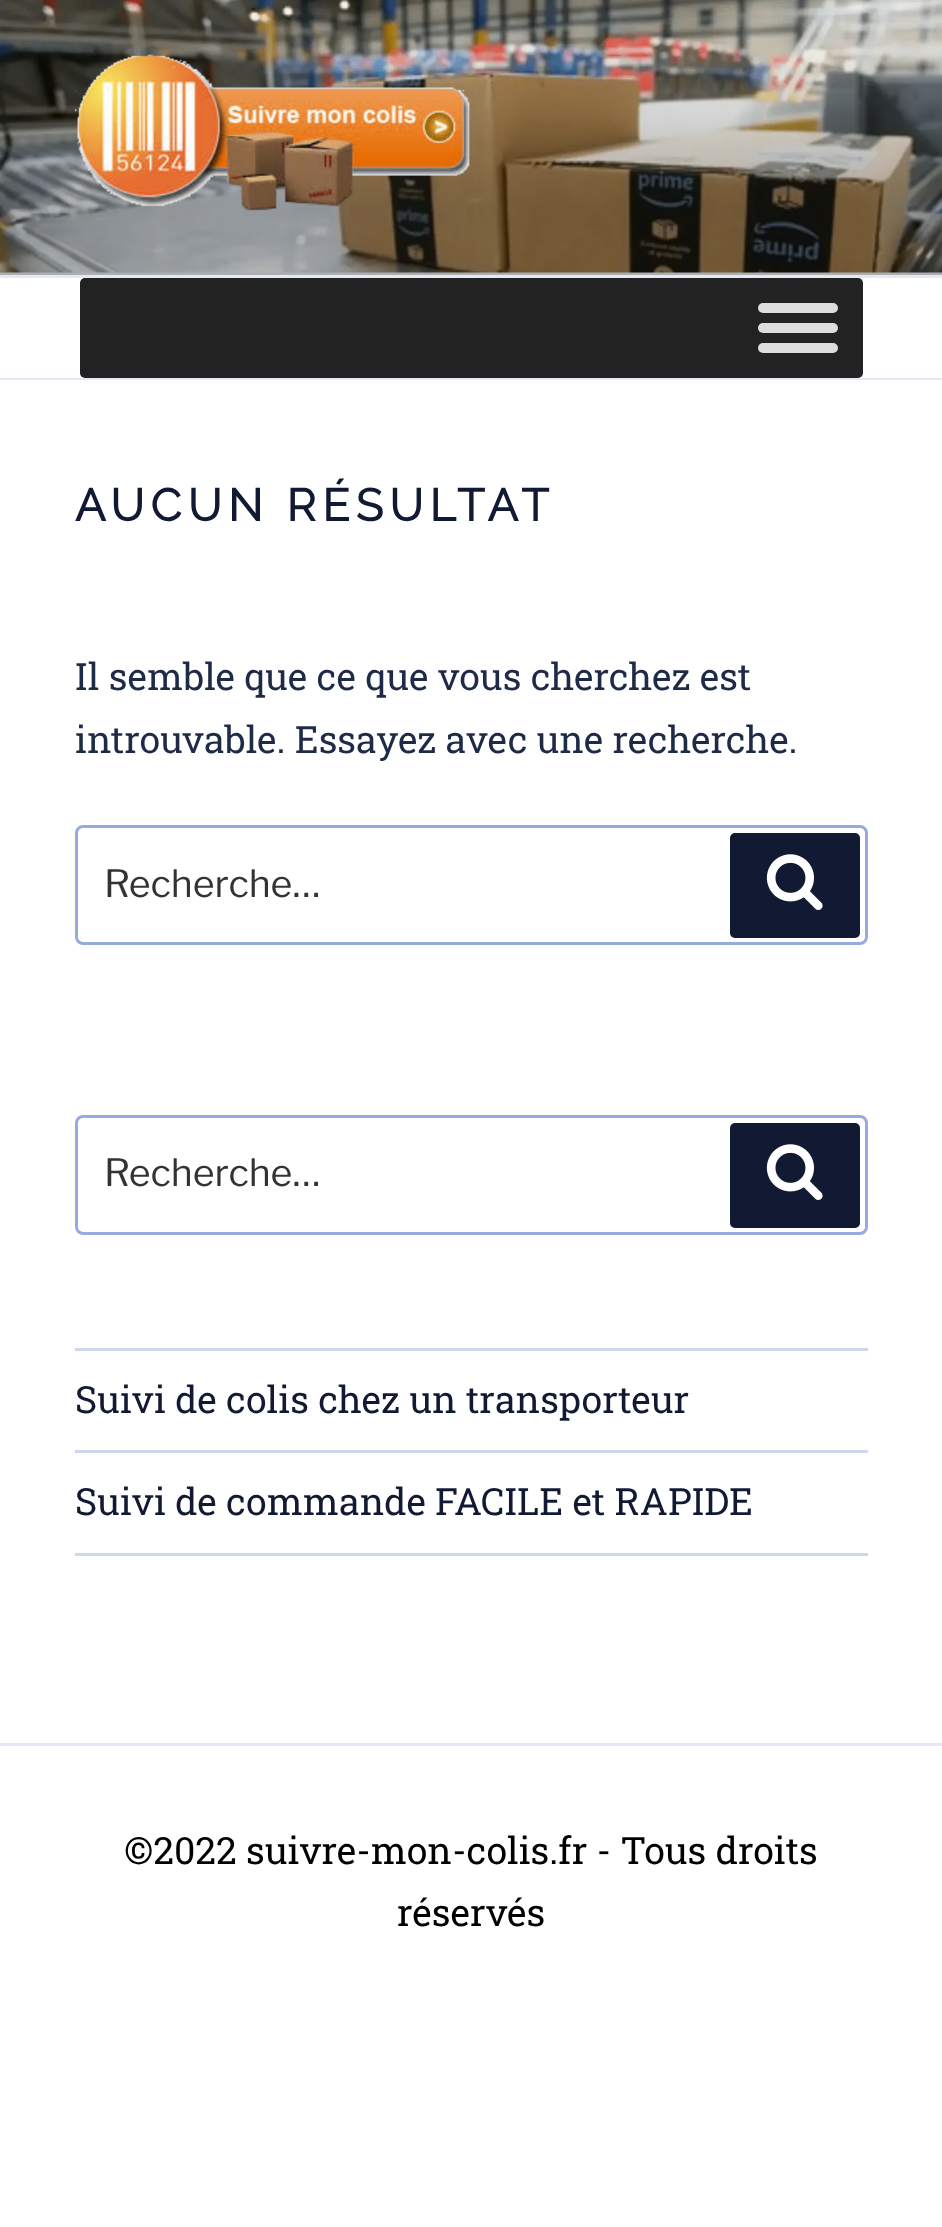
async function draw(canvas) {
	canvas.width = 942;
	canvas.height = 2227;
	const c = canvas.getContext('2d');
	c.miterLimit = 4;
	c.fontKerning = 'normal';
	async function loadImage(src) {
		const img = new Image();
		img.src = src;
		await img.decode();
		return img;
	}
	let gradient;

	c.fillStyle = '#fff';
	c.fillRect(0, 0, 942, 2227);
	c.fillStyle = '#f7f9fc';
	c.fillRect(0, 272, 942, 3);
	c.drawImage(await loadImage('img1.png'), 0, 0, 942, 273);
	gradient = c.createLinearGradient(471, 0, 471, 275);
	gradient.addColorStop(0, '#00000000');
	gradient.addColorStop(0.75, '#0000004d');
	gradient.addColorStop(1, '#0000004d');
	c.fillStyle = gradient;
	c.fillRect(0, 15, 942, 260);
	c.drawImage(await loadImage('img2.png'), 75, 49, 395, 162);
	c.fillStyle = '#e4e9f6';
	c.fillRect(0, 275, 942, 3);
	c.fillRect(0, 378, 942, 2);
	c.fillStyle = '#222';
	c.beginPath();
	c.roundRect(80, 278, 783, 100, 5);
	c.fill();
	c.fillStyle = '#ddd';
	c.beginPath();
	c.roundRect(758, 303, 80, 10, 5);
	c.fill();
	c.beginPath();
	c.roundRect(758, 323, 80, 10, 5);
	c.fill();
	c.beginPath();
	c.roundRect(758, 343, 80, 10, 5);
	c.fill();
	c.letterSpacing = '6.25px';
	c.font = 'bold 45px Raleway';
	c.fillStyle = '#111a32';
	c.fillText('AUCUN RÉSULTAT', 75, 521);
	c.letterSpacing = '0px';
	c.font = '37.5px Roboto Slab';
	c.fillStyle = '#1f2a47';
	c.fillText('Il semble que ce que vous cherchez est', 75, 690);
	c.fillText('introuvable. Essayez avec une recherche.', 75, 753);
	c.beginPath();
	c.roundRect(76.5, 826.5, 790, 117, 6.5);
	c.strokeStyle = '#98abdd';
	c.lineWidth = 3;
	c.stroke();
	c.font = '100 37.5px Libre Franklin';
	c.fillStyle = '#333';
	c.fillText('Recherche…', 104, 897);
	c.fillStyle = '#111a32';
	c.beginPath();
	c.roundRect(730, 833, 130, 105, 5);
	c.fill();
	c.drawImage(await loadImage('img3.png'), 766, 854, 57, 56);
	c.beginPath();
	c.roundRect(76.5, 1116.5, 790, 117, 6.5);
	c.stroke();
	c.fillStyle = '#333';
	c.fillText('Recherche…', 104, 1186);
	c.fillStyle = '#111a32';
	c.beginPath();
	c.roundRect(730, 1123, 130, 105, 5);
	c.fill();
	c.drawImage(await loadImage('img3.png'), 766, 1144, 57, 56);
	c.fillStyle = '#cdd7ee';
	c.fillRect(75, 1348, 793, 3);
	c.fillRect(75, 1450, 793, 3);
	c.font = '37.5px Roboto Slab';
	c.fillStyle = '#111a32';
	c.fillText('Suivi de colis chez un transporteur', 75, 1413);
	c.fillStyle = '#cdd7ee';
	c.fillRect(75, 1553, 793, 3);
	c.fillStyle = '#111a32';
	c.fillText('Suivi de commande FACILE et RAPIDE', 75, 1515);
	c.fillStyle = '#e4e9f6';
	c.fillRect(0, 1743, 942, 3);
	c.fillStyle = '#000';
	c.fillText('©2022 suivre-mon-colis.fr - Tous droits', 124, 1864);
	c.fillText('réservés', 397, 1926);
}

draw(document.querySelector('canvas'));
